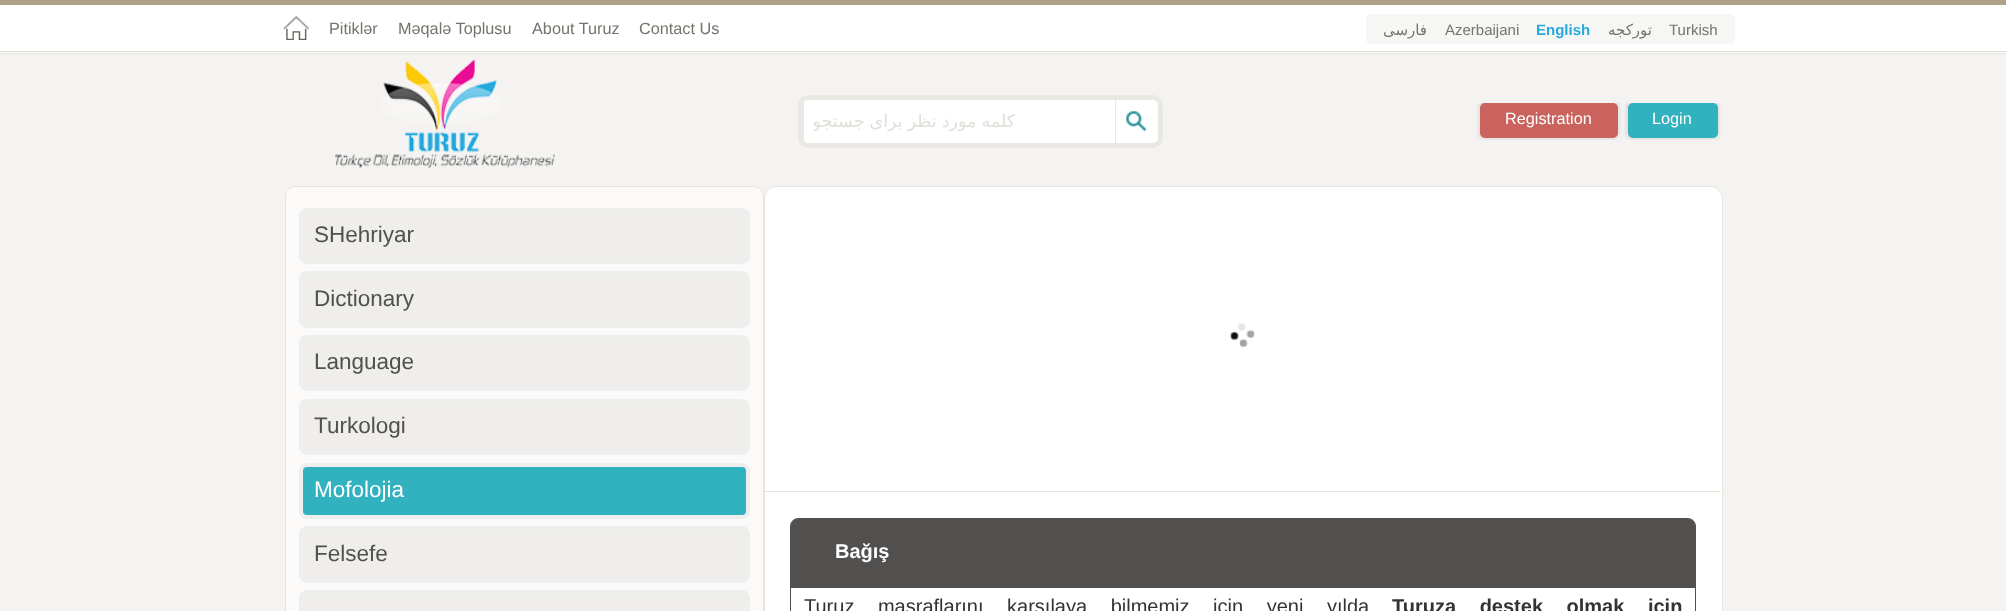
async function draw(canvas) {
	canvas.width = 2006;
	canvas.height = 611;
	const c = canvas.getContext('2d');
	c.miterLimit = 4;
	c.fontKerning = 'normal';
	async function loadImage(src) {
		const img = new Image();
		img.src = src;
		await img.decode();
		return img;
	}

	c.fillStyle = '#f4f3f1';
	c.fillRect(0, 0, 2006, 611);
	c.fillStyle = '#d6d2cb66';
	c.filter = 'blur(0.5px)';
	c.beginPath();
	c.rect(0, 1, 2006, 53);
	c.fill();
	c.filter = 'none';
	for (const [x, y, w, h, color] of [
		[0, 5, 2006, 48, '#fff'],
		[0, 0, 2006, 5, '#ada18a'],
		[0, 51, 2006, 1, '#dcd9d3'],
	]) {
		c.fillStyle = color;
		c.fillRect(x, y, w, h);
	}
	c.drawImage(await loadImage('img1.png'), 283, 16, 26, 24);
	c.font = '16.25px Liberation Sans';
	c.fillStyle = '#76736d';
	for (const [text, x, y] of [
		['Pitiklər', 329, 34],
		['Məqalə Toplusu', 398, 34],
		['About Turuz', 532, 34],
		['Contact Us', 639, 34],
	]) {
		c.fillText(text, x, y);
	}
	c.fillStyle = '#f6f6f5';
	c.beginPath();
	c.roundRect(1366, 14, 369, 30, 5);
	c.fill();
	c.direction = 'rtl';
	c.font = '15px DejaVu Sans';
	c.fillStyle = '#76736d';
	c.fillText('فارسی', 1427, 35);
	c.direction = 'ltr';
	c.font = '15px Liberation Sans';
	c.fillText('Azerbaijani', 1445, 35);
	c.font = 'bold 15px Liberation Sans';
	c.fillStyle = '#27aade';
	c.fillText('English', 1536, 35);
	c.direction = 'rtl';
	c.font = '15px DejaVu Sans';
	c.fillStyle = '#76736d';
	c.fillText('تورکجه', 1652, 35);
	c.direction = 'ltr';
	c.font = '15px Liberation Sans';
	c.fillText('Turkish', 1669, 35);
	c.drawImage(await loadImage('img2.png'), 335, 59, 220, 109);
	c.fillStyle = '#fff';
	c.beginPath();
	c.roundRect(800.5, 97.5, 360, 48, 7.5);
	c.fill();
	c.strokeStyle = '#eae8e2';
	c.lineWidth = 5;
	c.stroke();
	c.save();
	c.beginPath();
	c.roundRect(803, 100, 355, 43, 5);
	c.clip();
	c.fillStyle = '#eae8e2';
	c.fillRect(803, 103, 1, 38);
	c.restore();
	c.save();
	c.beginPath();
	c.rect(814, 111, 291, 20);
	c.clip();
	c.wordSpacing = '-0.5px';
	c.direction = 'rtl';
	c.font = '17.5px DejaVu Sans';
	c.fillStyle = '#e1dfda';
	c.fillText('کلمه مورد نظر برای جستجو', 1015, 127);
	c.restore();
	c.drawImage(await loadImage('img3.png'), 1126, 110, 21, 22);
	c.fillStyle = '#eae8e2';
	c.fillRect(1115, 100, 1, 43);
	c.save();
	c.beginPath();
	c.rect(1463, 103, 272, 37);
	c.clip();
	c.fillStyle = '#0000001a';
	c.filter = 'blur(2px)';
	c.beginPath();
	c.roundRect(1479, 101, 140, 38, 6);
	c.fill();
	c.filter = 'none';
	c.restore();
	c.fillStyle = '#ca635d';
	c.beginPath();
	c.roundRect(1480, 103, 138, 35, 5);
	c.fill();
	c.font = '16.25px Liberation Sans';
	c.fillStyle = '#fff';
	c.fillText('Registration', 1505, 124);
	c.save();
	c.beginPath();
	c.rect(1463, 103, 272, 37);
	c.clip();
	c.fillStyle = '#0000001a';
	c.filter = 'blur(2px)';
	c.beginPath();
	c.roundRect(1626, 101, 93, 38, 6);
	c.fill();
	c.filter = 'none';
	c.restore();
	c.fillStyle = '#32b1bf';
	c.beginPath();
	c.roundRect(1628, 103, 90, 35, 5);
	c.fill();
	c.fillStyle = '#fff';
	c.fillText('Login', 1652, 124);
	c.fillStyle = '#fbfaf9';
	c.beginPath();
	c.moveTo(295, 186.5);
	c.lineTo(754, 186.5);
	c.bezierCurveTo(759, 186.5, 763.5, 191, 763.5, 196);
	c.lineTo(763.5, 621.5);
	c.lineTo(285.5, 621.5);
	c.lineTo(285.5, 196);
	c.bezierCurveTo(285.5, 191, 290, 186.5, 295, 186.5);
	c.closePath();
	c.fill();
	c.strokeStyle = '#e8e5df';
	c.lineWidth = 1;
	c.stroke();
	c.fillStyle = '#f0eeeb';
	c.beginPath();
	c.roundRect(301, 210, 447, 52, 6);
	c.fill();
	c.strokeStyle = '#eee';
	c.lineWidth = 4;
	c.stroke();
	c.font = '22.5px Liberation Sans';
	c.fillStyle = '#505050';
	c.fillText('SHehriyar', 314, 242);
	c.fillStyle = '#f0eeeb';
	c.beginPath();
	c.roundRect(301, 273, 447, 53, 6);
	c.fill();
	c.stroke();
	c.fillStyle = '#505050';
	c.fillText('Dictionary', 314, 306);
	c.fillStyle = '#f0eeeb';
	c.beginPath();
	c.roundRect(301, 337, 447, 52, 6);
	c.fill();
	c.stroke();
	c.fillStyle = '#505050';
	c.fillText('Language', 314, 369);
	c.fillStyle = '#f0eeeb';
	c.beginPath();
	c.roundRect(301, 401, 447, 52, 6);
	c.fill();
	c.stroke();
	c.fillStyle = '#505050';
	c.fillText('Turkologi', 314, 433);
	c.fillStyle = '#32b1bf';
	c.beginPath();
	c.roundRect(301, 465, 447, 52, 6);
	c.fill();
	c.stroke();
	c.fillStyle = '#fff';
	c.fillText('Mofolojia', 314, 497);
	c.fillStyle = '#f0eeeb';
	c.beginPath();
	c.roundRect(301, 528, 447, 53, 6);
	c.fill();
	c.stroke();
	c.fillStyle = '#505050';
	c.fillText('Felsefe', 314, 561);
	c.fillStyle = '#f0eeeb';
	c.beginPath();
	c.roundRect(301, 592, 447, 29, 6);
	c.fill();
	c.stroke();
	c.fillStyle = '#fff';
	c.beginPath();
	c.moveTo(777, 186.5);
	c.lineTo(1710, 186.5);
	c.bezierCurveTo(1717, 186.5, 1722.5, 192, 1722.5, 199);
	c.lineTo(1722.5, 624.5);
	c.lineTo(764.5, 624.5);
	c.lineTo(764.5, 199);
	c.bezierCurveTo(764.5, 192, 770, 186.5, 777, 186.5);
	c.closePath();
	c.fill();
	c.strokeStyle = '#e8e5df';
	c.lineWidth = 1;
	c.stroke();
	c.fillStyle = '#e8e5df';
	c.fillRect(765, 491, 956, 1);
	c.drawImage(await loadImage('img4.png'), 1230, 323, 25, 25);
	c.beginPath();
	c.roundRect(790.5, 518.5, 905, 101, 7.5);
	c.strokeStyle = '#51504e';
	c.stroke();
	c.fillStyle = '#51504e';
	c.beginPath();
	c.roundRect(791, 519, 904, 69, [6, 6, 0, 0]);
	c.fill();
	c.font = 'bold 20px Liberation Sans';
	c.fillStyle = '#fff';
	c.fillText('Bağış', 835, 558);
	c.wordSpacing = '18px';
	c.font = '20px Liberation Sans';
	c.fillStyle = '#333';
	c.fillText('Turuz masraflarını karşılaya bilmemiz için yeni yılda', 804, 613);
	c.font = 'bold 20px Liberation Sans';
	c.fillText('Turuza destek olmak için', 1392, 613);
}

draw(document.querySelector('canvas'));
